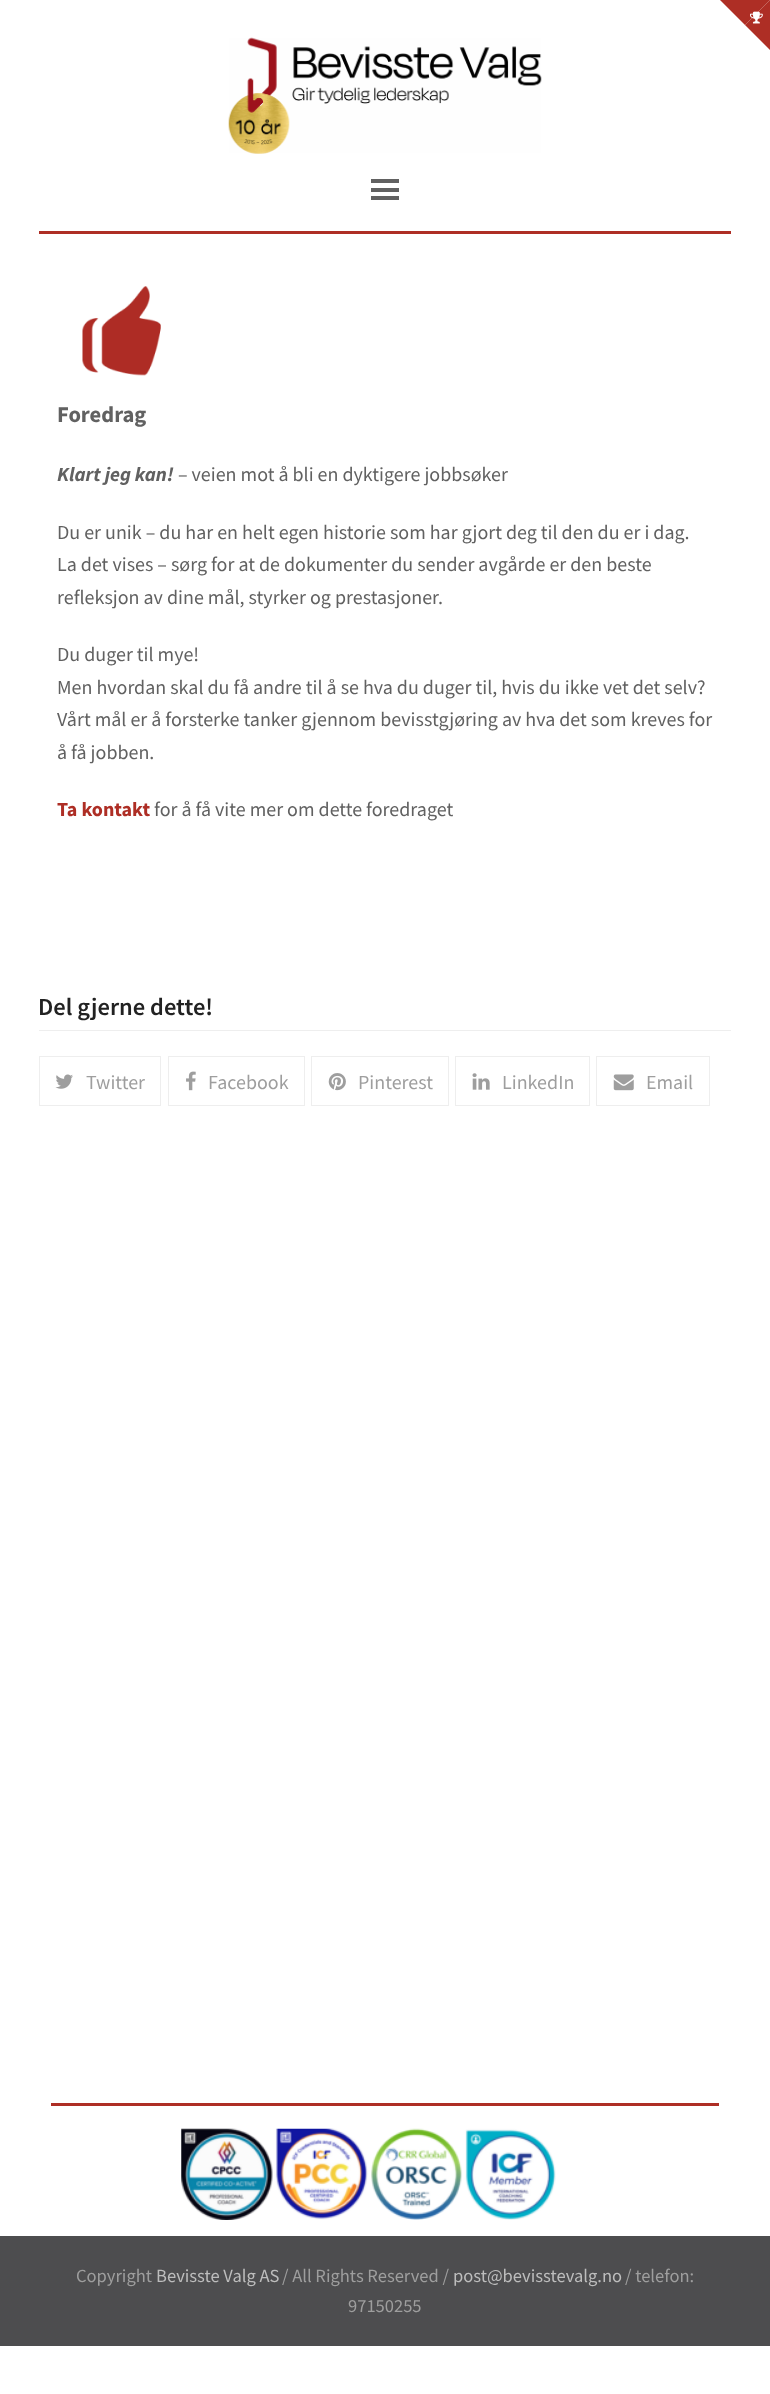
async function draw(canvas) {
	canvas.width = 770;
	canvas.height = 2394;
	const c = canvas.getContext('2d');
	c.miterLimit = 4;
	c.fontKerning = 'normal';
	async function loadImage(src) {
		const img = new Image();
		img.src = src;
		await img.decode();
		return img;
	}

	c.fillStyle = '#fff';
	c.fillRect(0, 0, 770, 2394);
	c.fillStyle = '#ae2e25';
	c.beginPath();
	c.moveTo(720, 0);
	c.lineTo(770, 0);
	c.lineTo(745, 25);
	c.closePath();
	c.fill();
	c.beginPath();
	c.moveTo(770, 0);
	c.lineTo(770, 50);
	c.lineTo(745, 25);
	c.closePath();
	c.fill();
	c.drawImage(await loadImage('img1.png'), 750, 11, 13, 13);
	c.drawImage(await loadImage('img2.png'), 228, 37, 314, 117);
	for (const [x, y, w, h, color] of [
		[371, 188, 28, 4, '#616161'],
		[371, 179, 28, 4, '#616161'],
		[371, 196, 28, 4, '#616161'],
		[39, 231, 692, 3, '#ae2e25'],
	]) {
		c.fillStyle = color;
		c.fillRect(x, y, w, h);
	}
	c.drawImage(await loadImage('img3.png'), 82, 286, 79, 90);
	c.font = 'bold 22.5px Source Sans Pro';
	c.fillStyle = '#616161';
	c.fillText('Foredrag', 57, 422);
	c.font = 'italic bold 20px Source Sans Pro';
	c.fillText('Klart jeg kan!', 57, 481);
	c.font = '20px Source Sans Pro';
	for (const [text, x, y] of [
		['– veien mot å bli en dyktigere jobbsøker', 178, 481],
		['Du er unik – du har en helt egen historie som har gjort deg til den du er i dag.', 57, 539],
		['La det vises – sørg for at de dokumenter du sender avgårde er den beste', 57, 571],
		['refleksjon av dine mål, styrker og prestasjoner.', 57, 604],
		['Du duger til mye!', 57, 661],
		['Men hvordan skal du få andre til å se hva du duger til, hvis du ikke vet det selv?', 57, 694],
		['Vårt mål er å forsterke tanker gjennom bevisstgjøring av hva det som kreves for', 57, 726],
		['å få jobben.', 57, 759],
	]) {
		c.fillText(text, x, y);
	}
	c.font = 'bold 20px Source Sans Pro';
	c.fillStyle = '#ae2e25';
	c.fillText('Ta kontakt', 57, 816);
	c.font = '20px Source Sans Pro';
	c.fillStyle = '#616161';
	c.fillText('for å få vite mer om dette foredraget', 154, 816);
	c.fillStyle = '#eee';
	c.fillRect(39, 1030, 692, 1);
	c.font = '600 24.5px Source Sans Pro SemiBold';
	c.fillStyle = '#222';
	c.fillText('Del gjerne dette!', 38, 1015);
	c.strokeStyle = '#eee';
	c.strokeRect(39.5, 1056.5, 121, 49);
	c.drawImage(await loadImage('img4.png'), 55, 1074, 18, 15);
	c.font = '20px Source Sans Pro';
	c.fillStyle = '#9e9e9e';
	c.fillText('Twitter', 86, 1089);
	c.strokeRect(168.5, 1056.5, 136, 49);
	c.drawImage(await loadImage('img5.png'), 186, 1071, 10, 20);
	c.fillText('Facebook', 208, 1089);
	c.strokeRect(311.5, 1056.5, 137, 49);
	c.drawImage(await loadImage('img6.png'), 328, 1073, 18, 18);
	c.fillText('Pinterest', 358, 1089);
	c.strokeRect(455.5, 1056.5, 134, 49);
	c.drawImage(await loadImage('img7.png'), 472, 1073, 18, 17);
	c.fillText('LinkedIn', 502, 1089);
	c.strokeRect(596.5, 1056.5, 113, 49);
	c.drawImage(await loadImage('img8.png'), 613, 1074, 21, 17);
	c.fillText('Email', 646, 1089);
	c.fillStyle = '#ae2e25';
	c.fillRect(51, 2103, 668, 3);
	c.drawImage(await loadImage('img9.png'), 181, 2128, 375, 92);
	c.fillStyle = '#4d4d4f';
	c.fillRect(0, 2236, 770, 110);
	c.font = '18.5px Source Sans Pro';
	c.fillStyle = '#9e9e9e';
	c.fillText('Copyright', 76, 2282);
	c.fillStyle = '#bdbdbd';
	c.fillText('Bevisste Valg AS', 156, 2282);
	c.fillStyle = '#9e9e9e';
	c.fillText('/ All Rights Reserved /', 282, 2282);
	c.fillStyle = '#bdbdbd';
	c.fillText('post@bevisstevalg.no', 453, 2282);
	c.fillStyle = '#9e9e9e';
	c.fillText('/ telefon:', 625, 2282);
	c.fillText('97150255', 348, 2312);
}

draw(document.querySelector('canvas'));
